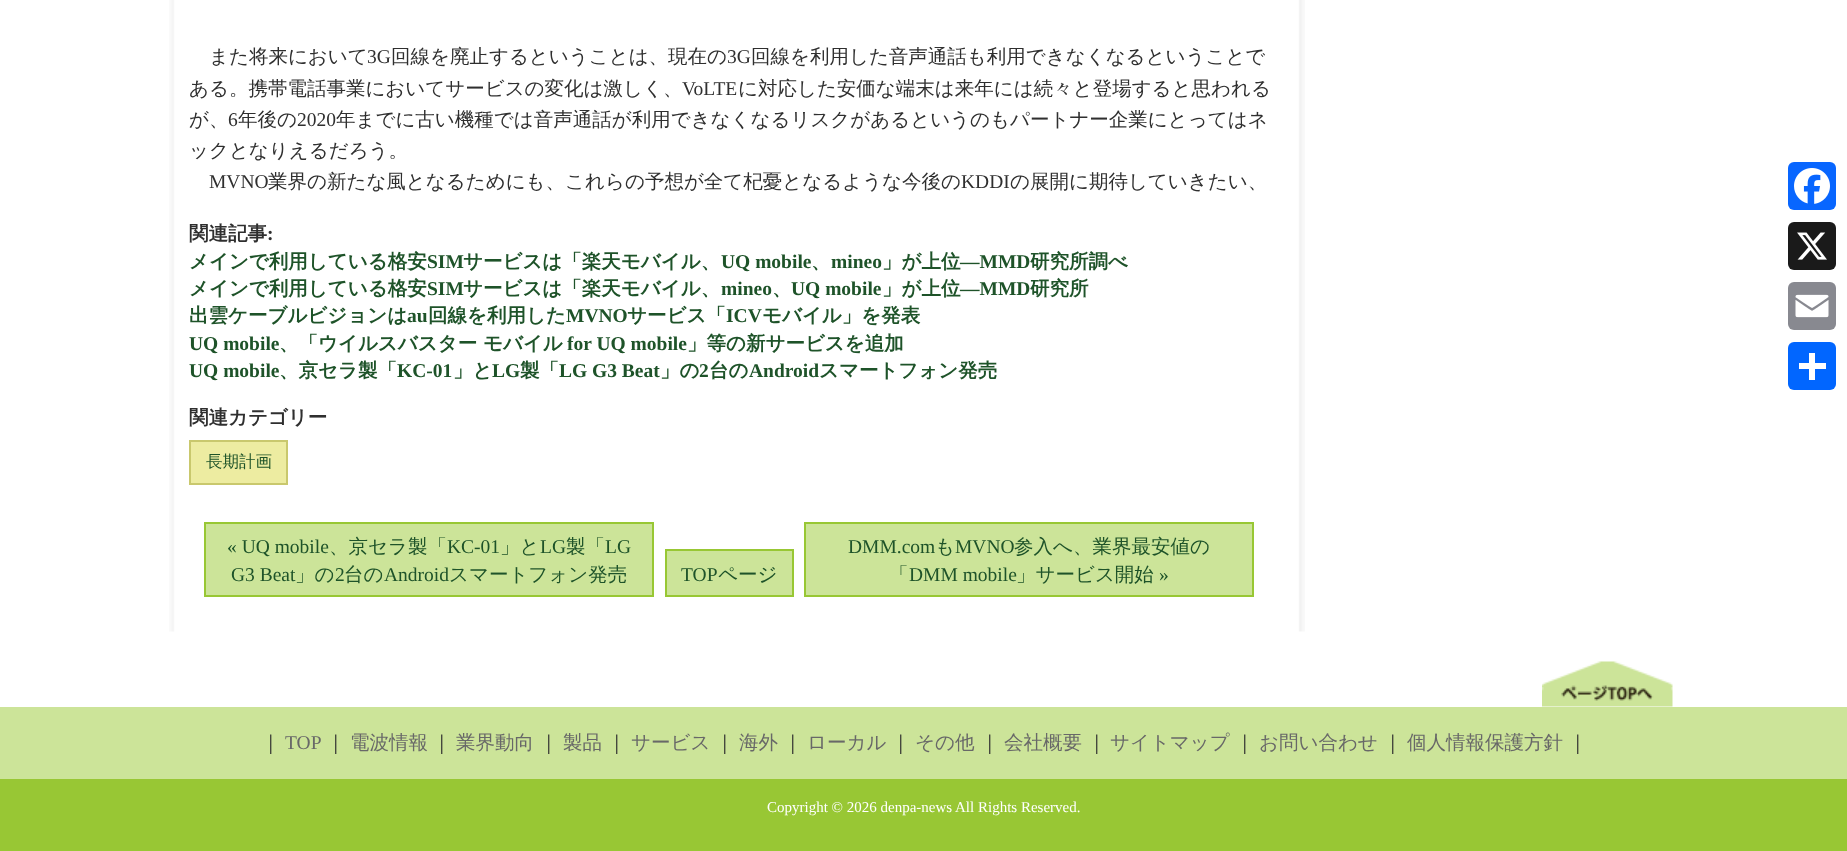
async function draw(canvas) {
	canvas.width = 1847;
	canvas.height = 851;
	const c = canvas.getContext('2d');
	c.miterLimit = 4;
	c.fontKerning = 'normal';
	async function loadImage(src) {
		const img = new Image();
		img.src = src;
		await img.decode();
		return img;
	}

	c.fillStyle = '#fff';
	c.fillRect(0, 0, 1847, 851);
	c.drawImage(await loadImage('img1.png'), 169, 0, 1136, 632);
	c.font = '500 19.5px WenQuanYi Zen Hei';
	c.fillStyle = '#2f2f2f';
	c.fillText('また将来において', 209, 63);
	c.font = '19.5px Liberation Serif';
	c.fillText('3G', 367, 63);
	c.font = '500 19.5px WenQuanYi Zen Hei';
	c.fillText('回線を廃止するということは、現在の', 391, 63);
	c.font = '19.5px Liberation Serif';
	c.fillText('3G', 727, 63);
	c.font = '500 19.5px WenQuanYi Zen Hei';
	c.fillText('回線を利用した音声通話も利用できなくなるということで', 751, 63);
	c.fillText('ある。携帯電話事業においてサービスの変化は激しく、', 189, 95);
	c.font = '19.5px Liberation Serif';
	c.fillText('VoLTE', 682, 95);
	c.font = '500 19.5px WenQuanYi Zen Hei';
	c.fillText('に対応した安価な端末は来年には続々と登場すると思われる', 738, 95);
	c.fillText('が、', 189, 126);
	c.font = '19.5px Liberation Serif';
	c.fillText('6', 228, 126);
	c.font = '500 19.5px WenQuanYi Zen Hei';
	c.fillText('年後の', 238, 126);
	c.font = '19.5px Liberation Serif';
	c.fillText('2020', 297, 126);
	c.font = '500 19.5px WenQuanYi Zen Hei';
	c.fillText('年までに古い機種では音声通話が利用できなくなるリスクがあるというのもパートナー企業にとってはネ', 336, 126);
	c.fillText('ックとなりえるだろう。', 189, 157);
	c.font = '19.5px Liberation Serif';
	c.fillText('MVNO', 209, 188);
	c.font = '500 19.5px WenQuanYi Zen Hei';
	c.fillText('業界の新たな風となるためにも、これらの予想が全て杞憂となるような今後の', 268, 188);
	c.font = '19.5px Liberation Serif';
	c.fillText('KDDI', 961, 188);
	c.font = '500 19.5px WenQuanYi Zen Hei';
	c.fillText('の展開に期待していきたい、', 1010, 188);
	c.font = 'bold 19.5px WenQuanYi Zen Hei';
	c.fillText('関連記事', 189, 240);
	c.font = 'bold 19.5px Liberation Serif';
	c.fillText(':', 267, 240);
	c.font = 'bold 19.5px WenQuanYi Zen Hei';
	c.fillStyle = '#1e5329';
	c.fillText('メインで利用している格安', 189, 268);
	c.font = 'bold 19.5px Liberation Serif';
	c.fillText('SIM', 427, 268);
	c.font = 'bold 19.5px WenQuanYi Zen Hei';
	c.fillText('サービスは「楽天モバイル、', 463, 268);
	c.font = 'bold 19.5px Liberation Serif';
	c.fillText('UQ mobile', 721, 268);
	c.font = 'bold 19.5px WenQuanYi Zen Hei';
	c.fillText('、', 811, 268);
	c.font = 'bold 19.5px Liberation Serif';
	c.fillText('mineo', 831, 268);
	c.font = 'bold 19.5px WenQuanYi Zen Hei';
	c.fillText('」が上位', 882, 268);
	c.font = 'bold 19.5px Liberation Serif';
	c.fillText('—MMD', 960, 268);
	c.font = 'bold 19.5px WenQuanYi Zen Hei';
	c.fillText('研究所調べ', 1030, 268);
	c.fillText('メインで利用している格安', 189, 295);
	c.font = 'bold 19.5px Liberation Serif';
	c.fillText('SIM', 427, 295);
	c.font = 'bold 19.5px WenQuanYi Zen Hei';
	c.fillText('サービスは「楽天モバイル、', 463, 295);
	c.font = 'bold 19.5px Liberation Serif';
	c.fillText('mineo', 721, 295);
	c.font = 'bold 19.5px WenQuanYi Zen Hei';
	c.fillText('、', 772, 295);
	c.font = 'bold 19.5px Liberation Serif';
	c.fillText('UQ mobile', 791, 295);
	c.font = 'bold 19.5px WenQuanYi Zen Hei';
	c.fillText('」が上位', 882, 295);
	c.font = 'bold 19.5px Liberation Serif';
	c.fillText('―MMD', 960, 295);
	c.font = 'bold 19.5px WenQuanYi Zen Hei';
	c.fillText('研究所', 1030, 295);
	c.fillText('出雲ケーブルビジョンは', 189, 322);
	c.font = 'bold 19.5px Liberation Serif';
	c.fillText('au', 407, 322);
	c.font = 'bold 19.5px WenQuanYi Zen Hei';
	c.fillText('回線を利用した', 428, 322);
	c.font = 'bold 19.5px Liberation Serif';
	c.fillText('MVNO', 566, 322);
	c.font = 'bold 19.5px WenQuanYi Zen Hei';
	c.fillText('サービス「', 627, 322);
	c.font = 'bold 19.5px Liberation Serif';
	c.fillText('ICV', 726, 322);
	c.font = 'bold 19.5px WenQuanYi Zen Hei';
	c.fillText('モバイル」を発表', 762, 322);
	c.font = 'bold 19.5px Liberation Serif';
	c.fillText('UQ mobile', 189, 350);
	c.font = 'bold 19.5px WenQuanYi Zen Hei';
	c.fillText('、「ウイルスバスター', 279, 350);
	c.fillText('モバイル', 483, 350);
	c.font = 'bold 19.5px Liberation Serif';
	c.fillText('for UQ mobile', 567, 350);
	c.font = 'bold 19.5px WenQuanYi Zen Hei';
	c.fillText('」等の新サービスを追加', 687, 350);
	c.font = 'bold 19.5px Liberation Serif';
	c.fillText('UQ mobile', 189, 377);
	c.font = 'bold 19.5px WenQuanYi Zen Hei';
	c.fillText('、京セラ製「', 279, 377);
	c.font = 'bold 19.5px Liberation Serif';
	c.fillText('KC-01', 397, 377);
	c.font = 'bold 19.5px WenQuanYi Zen Hei';
	c.fillText('」と', 453, 377);
	c.font = 'bold 19.5px Liberation Serif';
	c.fillText('LG', 492, 377);
	c.font = 'bold 19.5px WenQuanYi Zen Hei';
	c.fillText('製「', 520, 377);
	c.font = 'bold 19.5px Liberation Serif';
	c.fillText('LG G3 Beat', 559, 377);
	c.font = 'bold 19.5px WenQuanYi Zen Hei';
	c.fillText('」の', 660, 377);
	c.font = 'bold 19.5px Liberation Serif';
	c.fillText('2', 699, 377);
	c.font = 'bold 19.5px WenQuanYi Zen Hei';
	c.fillText('台の', 709, 377);
	c.font = 'bold 19.5px Liberation Serif';
	c.fillText('Android', 749, 377);
	c.font = 'bold 19.5px WenQuanYi Zen Hei';
	c.fillText('スマートフォン発売', 819, 377);
	c.fillStyle = '#2f2f2f';
	c.fillText('関連カテゴリー', 189, 424);
	c.fillStyle = '#edeca1';
	c.beginPath();
	c.rect(190, 441, 97, 43);
	c.fill();
	c.strokeStyle = '#c9c86d';
	c.lineWidth = 2;
	c.stroke();
	c.font = '500 16.5px WenQuanYi Zen Hei';
	c.fillStyle = '#1e5329';
	c.fillText('長期計画', 206, 467);
	c.fillStyle = '#cce499';
	c.beginPath();
	c.rect(205, 523, 448, 73);
	c.fill();
	c.strokeStyle = '#98c734';
	c.stroke();
	c.font = '19.5px Liberation Serif';
	c.fillStyle = '#1e5329';
	c.fillText('« UQ mobile', 227, 553);
	c.font = '500 19.5px WenQuanYi Zen Hei';
	c.fillText('、京セラ製「', 329, 553);
	c.font = '19.5px Liberation Serif';
	c.fillText('KC-01', 447, 553);
	c.font = '500 19.5px WenQuanYi Zen Hei';
	c.fillText('」と', 500, 553);
	c.font = '19.5px Liberation Serif';
	c.fillText('LG', 540, 553);
	c.font = '500 19.5px WenQuanYi Zen Hei';
	c.fillText('製「', 566, 553);
	c.font = '19.5px Liberation Serif';
	c.fillText('LG', 605, 553);
	c.fillText('G3 Beat', 231, 581);
	c.font = '500 19.5px WenQuanYi Zen Hei';
	c.fillText('」の', 295, 581);
	c.font = '19.5px Liberation Serif';
	c.fillText('2', 335, 581);
	c.font = '500 19.5px WenQuanYi Zen Hei';
	c.fillText('台の', 344, 581);
	c.font = '19.5px Liberation Serif';
	c.fillText('Android', 384, 581);
	c.font = '500 19.5px WenQuanYi Zen Hei';
	c.fillText('スマートフォン発売', 449, 581);
	c.fillStyle = '#cce499';
	c.beginPath();
	c.rect(666, 550, 127, 46);
	c.fill();
	c.stroke();
	c.font = '19.5px Liberation Serif';
	c.fillStyle = '#1e5329';
	c.fillText('TOP', 681, 581);
	c.font = '500 19.5px WenQuanYi Zen Hei';
	c.fillText('ページ', 718, 581);
	c.fillStyle = '#cce499';
	c.beginPath();
	c.rect(805, 523, 448, 73);
	c.fill();
	c.stroke();
	c.font = '19.5px Liberation Serif';
	c.fillStyle = '#1e5329';
	c.fillText('DMM.com', 848, 553);
	c.font = '500 19.5px WenQuanYi Zen Hei';
	c.fillText('も', 935, 553);
	c.font = '19.5px Liberation Serif';
	c.fillText('MVNO', 955, 553);
	c.font = '500 19.5px WenQuanYi Zen Hei';
	c.fillText('参入へ、業界最安値の', 1014, 553);
	c.fillText('「', 889, 581);
	c.font = '19.5px Liberation Serif';
	c.fillText('DMM mobile', 909, 581);
	c.font = '500 19.5px WenQuanYi Zen Hei';
	c.fillText('」サービス開始', 1016, 581);
	c.font = '19.5px Liberation Serif';
	c.fillText('»', 1159, 581);
	c.drawImage(await loadImage('img2.png'), 1542, 661, 131, 46);
	c.fillStyle = '#cce499';
	c.fillRect(0, 707, 1847, 72);
	c.font = '500 19.5px WenQuanYi Zen Hei';
	c.fillStyle = '#2f2f2f';
	c.fillText('｜', 261, 749);
	c.font = '19.5px Liberation Serif';
	c.fillStyle = '#686868';
	c.fillText('TOP', 285, 749);
	c.font = '500 19.5px WenQuanYi Zen Hei';
	c.fillStyle = '#2f2f2f';
	c.fillText('｜', 326, 749);
	c.fillStyle = '#686868';
	c.fillText('電波情報', 350, 749);
	c.fillStyle = '#2f2f2f';
	c.fillText('｜', 432, 749);
	c.fillStyle = '#686868';
	c.fillText('業界動向', 456, 749);
	c.fillStyle = '#2f2f2f';
	c.fillText('｜', 539, 749);
	c.fillStyle = '#686868';
	c.fillText('製品', 563, 749);
	c.fillStyle = '#2f2f2f';
	c.fillText('｜', 607, 749);
	c.fillStyle = '#686868';
	c.fillText('サービス', 631, 749);
	c.fillStyle = '#2f2f2f';
	c.fillText('｜', 715, 749);
	c.fillStyle = '#686868';
	c.fillText('海外', 739, 749);
	c.fillStyle = '#2f2f2f';
	c.fillText('｜', 783, 749);
	c.fillStyle = '#686868';
	c.fillText('ローカル', 807, 749);
	c.fillStyle = '#2f2f2f';
	c.fillText('｜', 891, 749);
	c.fillStyle = '#686868';
	c.fillText('その他', 915, 749);
	c.fillStyle = '#2f2f2f';
	c.fillText('｜', 980, 749);
	c.fillStyle = '#686868';
	c.fillText('会社概要', 1004, 749);
	c.fillStyle = '#2f2f2f';
	c.fillText('｜', 1087, 749);
	c.fillStyle = '#686868';
	c.fillText('サイトマップ', 1110, 749);
	c.fillStyle = '#2f2f2f';
	c.fillText('｜', 1235, 749);
	c.fillStyle = '#686868';
	c.fillText('お問い合わせ', 1259, 749);
	c.fillStyle = '#2f2f2f';
	c.fillText('｜', 1383, 749);
	c.fillStyle = '#686868';
	c.fillText('個人情報保護方針', 1407, 749);
	c.fillStyle = '#2f2f2f';
	c.fillText('｜', 1568, 749);
	c.fillStyle = '#98c734';
	c.fillRect(0, 779, 1847, 72);
	c.font = '15px Liberation Serif';
	c.fillStyle = '#fff';
	c.fillText('Copyright © 2026 denpa-news All Rights Reserved.', 767, 812);
	c.fillStyle = '#0866ff';
	c.beginPath();
	c.roundRect(1788, 162, 48, 48, 6);
	c.fill();
	c.drawImage(await loadImage('img3.png'), 1794, 168, 36, 36);
	c.fillStyle = '#1a1a1a';
	c.beginPath();
	c.roundRect(1788, 222, 48, 48, 6);
	c.fill();
	c.drawImage(await loadImage('img4.png'), 1797, 232, 30, 28);
	c.fillStyle = '#888990';
	c.beginPath();
	c.roundRect(1788, 282, 48, 48, 6);
	c.fill();
	c.drawImage(await loadImage('img5.png'), 1795, 294, 34, 24);
	c.fillStyle = '#0166ff';
	c.beginPath();
	c.roundRect(1788, 342, 48, 48, 6);
	c.fill();
	c.fillStyle = '#fff';
	c.fillRect(1809, 353, 6, 27);
	c.fillRect(1799, 363, 27, 6);
}

draw(document.querySelector('canvas'));
